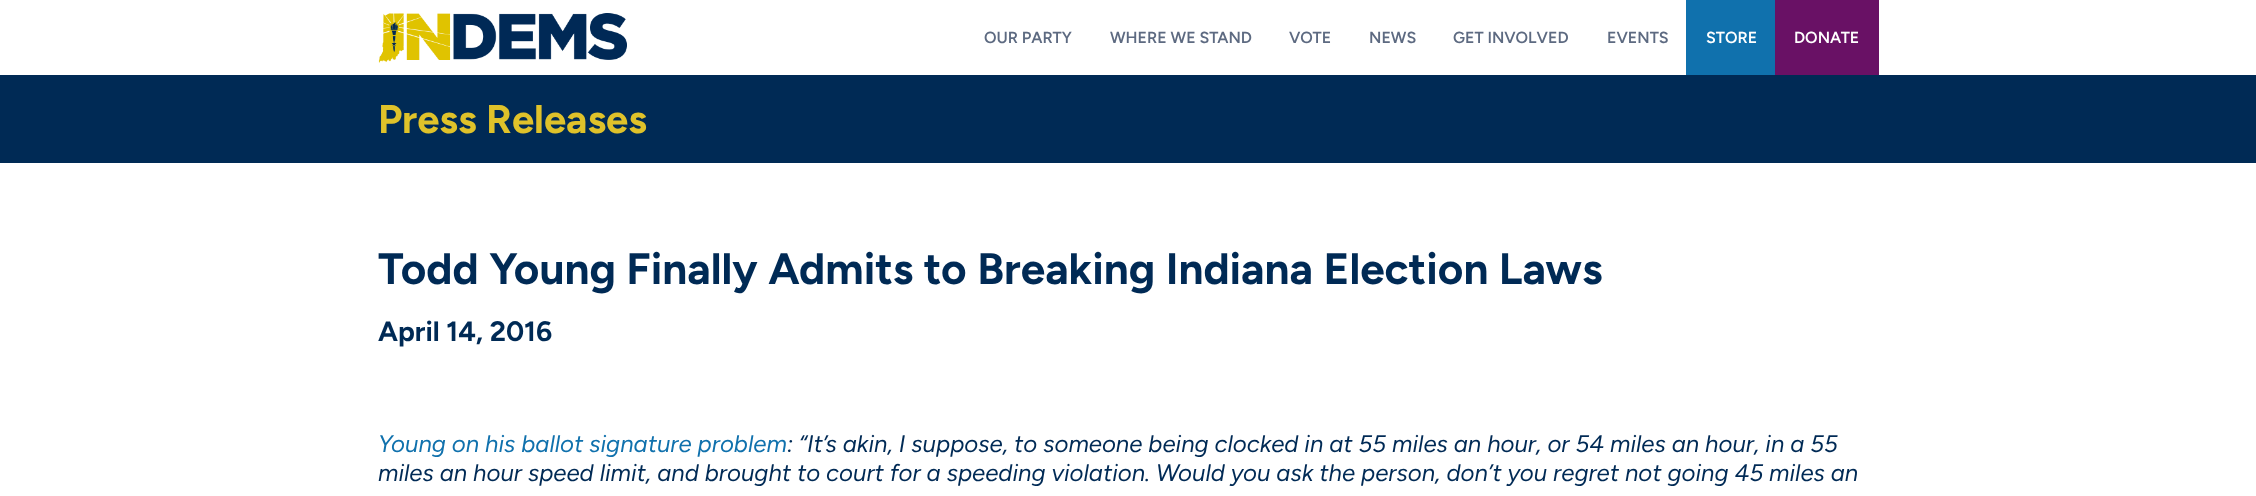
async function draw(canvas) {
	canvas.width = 2256;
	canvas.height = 496;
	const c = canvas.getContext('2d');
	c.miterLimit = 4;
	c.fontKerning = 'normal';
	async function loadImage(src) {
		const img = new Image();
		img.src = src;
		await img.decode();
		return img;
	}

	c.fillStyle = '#fff';
	c.fillRect(0, 0, 2256, 496);
	c.drawImage(await loadImage('img1.png'), 378, 13, 249, 50);
	c.font = '600 16px Figtree';
	c.fillStyle = '#5d6a81';
	for (const [text, x, y] of [
		['OUR PARTY', 984, 43],
		['WHERE WE STAND', 1110, 43],
		['VOTE', 1289, 43],
		['NEWS', 1369, 43],
		['GET INVOLVED', 1453, 43],
		['EVENTS', 1607, 43],
	]) {
		c.fillText(text, x, y);
	}
	c.fillStyle = '#1071ad';
	c.fillRect(1686, 0, 89, 75);
	c.fillStyle = '#fff';
	c.fillText('STORE', 1706, 43);
	c.fillStyle = '#691165';
	c.fillRect(1775, 0, 104, 75);
	c.fillStyle = '#fff';
	c.fillText('DONATE', 1794, 43);
	c.fillStyle = '#002a55';
	c.fillRect(0, 75, 2256, 88);
	c.font = 'bold 40px Figtree';
	c.fillStyle = '#dfc22a';
	c.fillText('Press Releases', 378, 133);
	c.font = 'bold 44px Figtree';
	c.fillStyle = '#002a55';
	c.fillText('Todd Young Finally Admits to Breaking Indiana Election Laws', 378, 284);
	c.font = 'bold 28px Figtree';
	c.fillText('April 14, 2016', 378, 341);
	c.font = 'italic 24px Figtree';
	c.fillStyle = '#1071ad';
	c.fillText('Young on his ballot signature problem', 378, 452);
	c.fillStyle = '#002a55';
	c.fillText(': “It’s akin, I suppose, to someone being clocked in at 55 miles an hour, or 54 miles an hour, in a 55', 787, 452);
	c.fillText('miles an hour speed limit, and brought to court for a speeding violation. Would you ask the person, don’t you regret not going 45 miles an', 378, 481);
}

draw(document.querySelector('canvas'));
